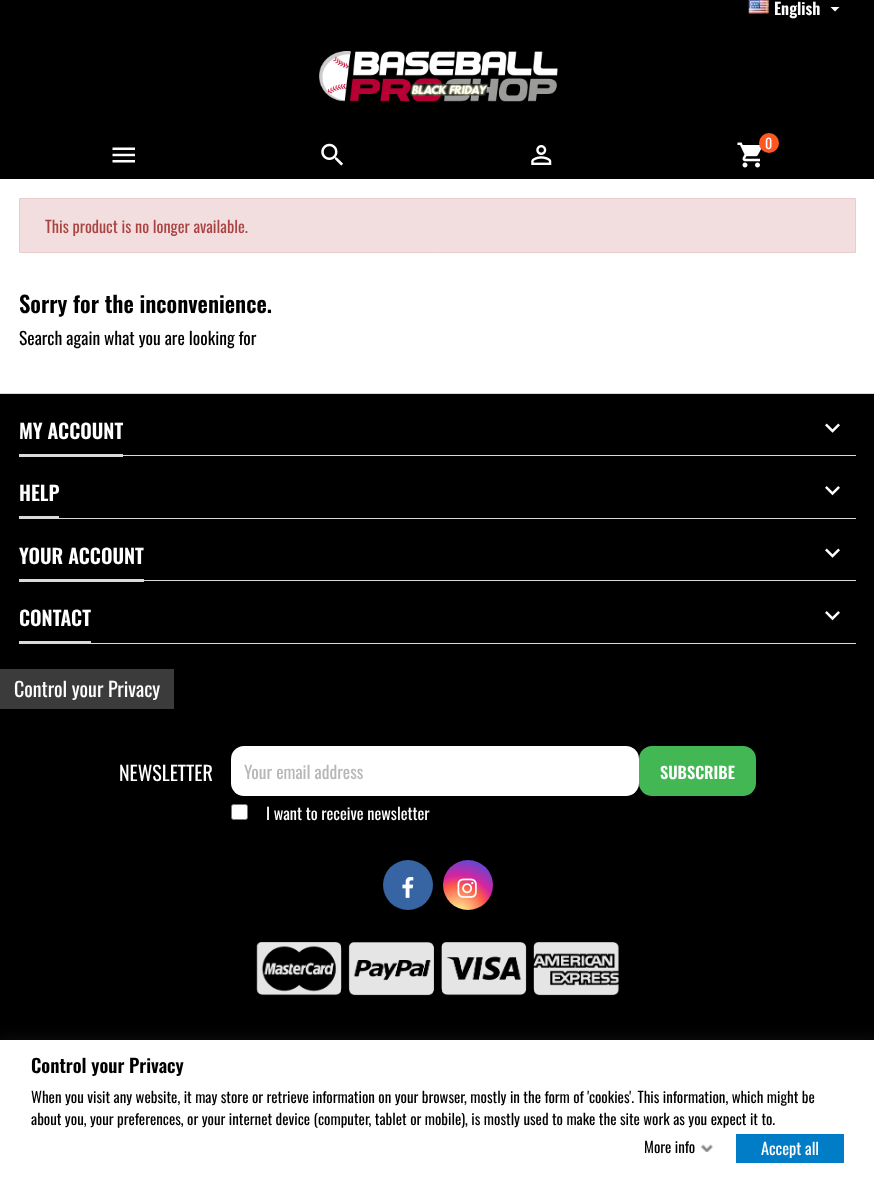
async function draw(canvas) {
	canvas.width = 874;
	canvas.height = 1178;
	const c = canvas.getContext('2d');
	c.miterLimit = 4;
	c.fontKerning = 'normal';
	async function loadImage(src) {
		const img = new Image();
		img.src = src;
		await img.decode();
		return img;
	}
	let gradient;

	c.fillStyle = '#fff';
	c.fillRect(0, 0, 874, 1178);
	c.fillStyle = '#000';
	c.fillRect(0, 0, 874, 179);
	c.drawImage(await loadImage('img1.png'), 748, 0, 21, 14);
	c.font = '600 16.25px Oswald';
	c.fillStyle = '#fff';
	c.fillText('English', 774, 15);
	c.beginPath();
	c.moveTo(830.5, 7);
	c.lineTo(839.5, 7);
	c.lineTo(835, 11.5);
	c.closePath();
	c.fill();
	c.drawImage(await loadImage('img2.png'), 319, 51, 239, 51);
	c.drawImage(await loadImage('img3.png'), 112, 147, 23, 16);
	c.drawImage(await loadImage('img4.png'), 321, 143, 22, 23);
	c.drawImage(await loadImage('img5.png'), 531, 145, 21, 20);
	c.drawImage(await loadImage('img6.png'), 737, 142, 24, 26);
	c.fillStyle = '#ff5722';
	c.beginPath();
	c.arc(769, 143, 10, 0, 2 * Math.PI);
	c.fill();
	c.font = '14px Oswald';
	c.fillStyle = '#fff';
	c.fillText('0', 765, 149);
	c.fillStyle = '#f2dede';
	c.beginPath();
	c.rect(19.5, 198.5, 836, 54);
	c.fill();
	c.strokeStyle = '#ebcccc';
	c.stroke();
	c.font = '16.25px Oswald';
	c.fillStyle = '#a94442';
	c.fillText('This product is no longer available.', 45, 233);
	c.font = '600 22.5px Oswald';
	c.fillStyle = '#000';
	c.fillText('Sorry for the inconvenience.', 19, 313);
	c.font = '17.5px Oswald';
	c.fillText('Search again what you are looking for', 19, 345);
	for (const [x, y, w, h, color] of [
		[0, 394, 874, 646, '#000'],
		[0, 393, 874, 1, '#dadada'],
		[123, 455, 733, 1, '#dadada'],
		[19, 454, 104, 3, '#dadada'],
	]) {
		c.fillStyle = color;
		c.fillRect(x, y, w, h);
	}
	c.font = '600 20px Oswald';
	c.fillStyle = '#fff';
	c.fillText('MY ACCOUNT', 19, 439);
	c.drawImage(await loadImage('img7.png'), 825, 423, 15, 10);
	c.fillStyle = '#dadada';
	c.fillRect(59, 518, 797, 1);
	c.fillRect(19, 516, 40, 3);
	c.fillStyle = '#fff';
	c.fillText('HELP', 19, 501);
	c.drawImage(await loadImage('img8.png'), 825, 486, 15, 10);
	c.fillStyle = '#dadada';
	c.fillRect(144, 580, 712, 1);
	c.fillRect(19, 579, 125, 3);
	c.fillStyle = '#fff';
	c.fillText('YOUR ACCOUNT', 19, 564);
	c.drawImage(await loadImage('img7.png'), 825, 548, 15, 10);
	c.fillStyle = '#dadada';
	c.fillRect(91, 643, 765, 1);
	c.fillRect(19, 641, 72, 3);
	c.fillStyle = '#fff';
	c.fillText('CONTACT', 19, 626);
	c.drawImage(await loadImage('img8.png'), 825, 611, 15, 10);
	c.fillStyle = '#3b3b3b';
	c.fillRect(0, 669, 174, 40);
	c.font = '20px Oswald';
	c.fillStyle = '#fff';
	c.fillText('Control your Privacy', 14, 697);
	c.fillText('NEWSLETTER', 119, 781);
	c.beginPath();
	c.roundRect(231, 746, 408, 50, 13);
	c.fill();
	c.font = '17.5px Oswald';
	c.fillStyle = '#b7b7b7';
	c.fillText('Your email address', 244, 779);
	c.fillStyle = '#43b754';
	c.beginPath();
	c.roundRect(639, 746, 117, 50, 13);
	c.fill();
	c.font = '600 16.25px Oswald';
	c.fillStyle = '#fff';
	c.fillText('SUBSCRIBE', 660, 779);
	c.beginPath();
	c.roundRect(231.5, 804.5, 16, 15, 2);
	c.fill();
	c.strokeStyle = '#767676';
	c.stroke();
	c.font = '16.25px Oswald';
	c.fillText('I want to receive newsletter', 266, 820);
	c.fillStyle = '#3765a3';
	c.beginPath();
	c.arc(408, 885, 25, 0, 2 * Math.PI);
	c.fill();
	c.drawImage(await loadImage('img9.png'), 402, 877, 12, 21);
	gradient = c.createRadialGradient(458, 914, 0, 458, 914, 64);
	gradient.addColorStop(0, '#fdf497');
	gradient.addColorStop(0.05, '#fdf497');
	gradient.addColorStop(0.45, '#fd5949');
	gradient.addColorStop(0.6, '#d6249f');
	gradient.addColorStop(1, '#285aeb');
	c.fillStyle = gradient;
	c.beginPath();
	c.arc(468, 885, 25, 0, 2 * Math.PI);
	c.fill();
	c.drawImage(await loadImage('img10.png'), 457, 878, 20, 20);
	c.drawImage(await loadImage('img11.png'), 256, 942, 363, 54);
	c.fillStyle = '#121212';
	c.filter = 'blur(9px)';
	c.beginPath();
	c.rect(0, 1040, 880, 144);
	c.fill();
	c.filter = 'none';
	c.fillStyle = '#fff';
	c.fillRect(0, 1040, 874, 138);
	c.font = '600 18.75px Oswald';
	c.fillStyle = '#000';
	c.fillText('Control your Privacy', 31, 1073);
	c.font = '15px Oswald';
	for (const [text, x, y] of [
		['When you visit any website, it may store or retrieve information on your browser, mostly in the form of \'cookies\'. This information, which might be', 31, 1103],
		['about you, your preferences, or your internet device (computer, tablet or mobile), is mostly used to make the site work as you expect it to.', 31, 1125],
		['More info', 644, 1153],
	]) {
		c.fillText(text, x, y);
	}
	c.drawImage(await loadImage('img12.png'), 701, 1144, 13, 8);
	c.fillStyle = '#007dc6';
	c.fillRect(736, 1134, 108, 29);
	c.font = '16.25px Oswald';
	c.fillStyle = '#fff';
	c.fillText('Accept all', 761, 1155);
}

draw(document.querySelector('canvas'));
